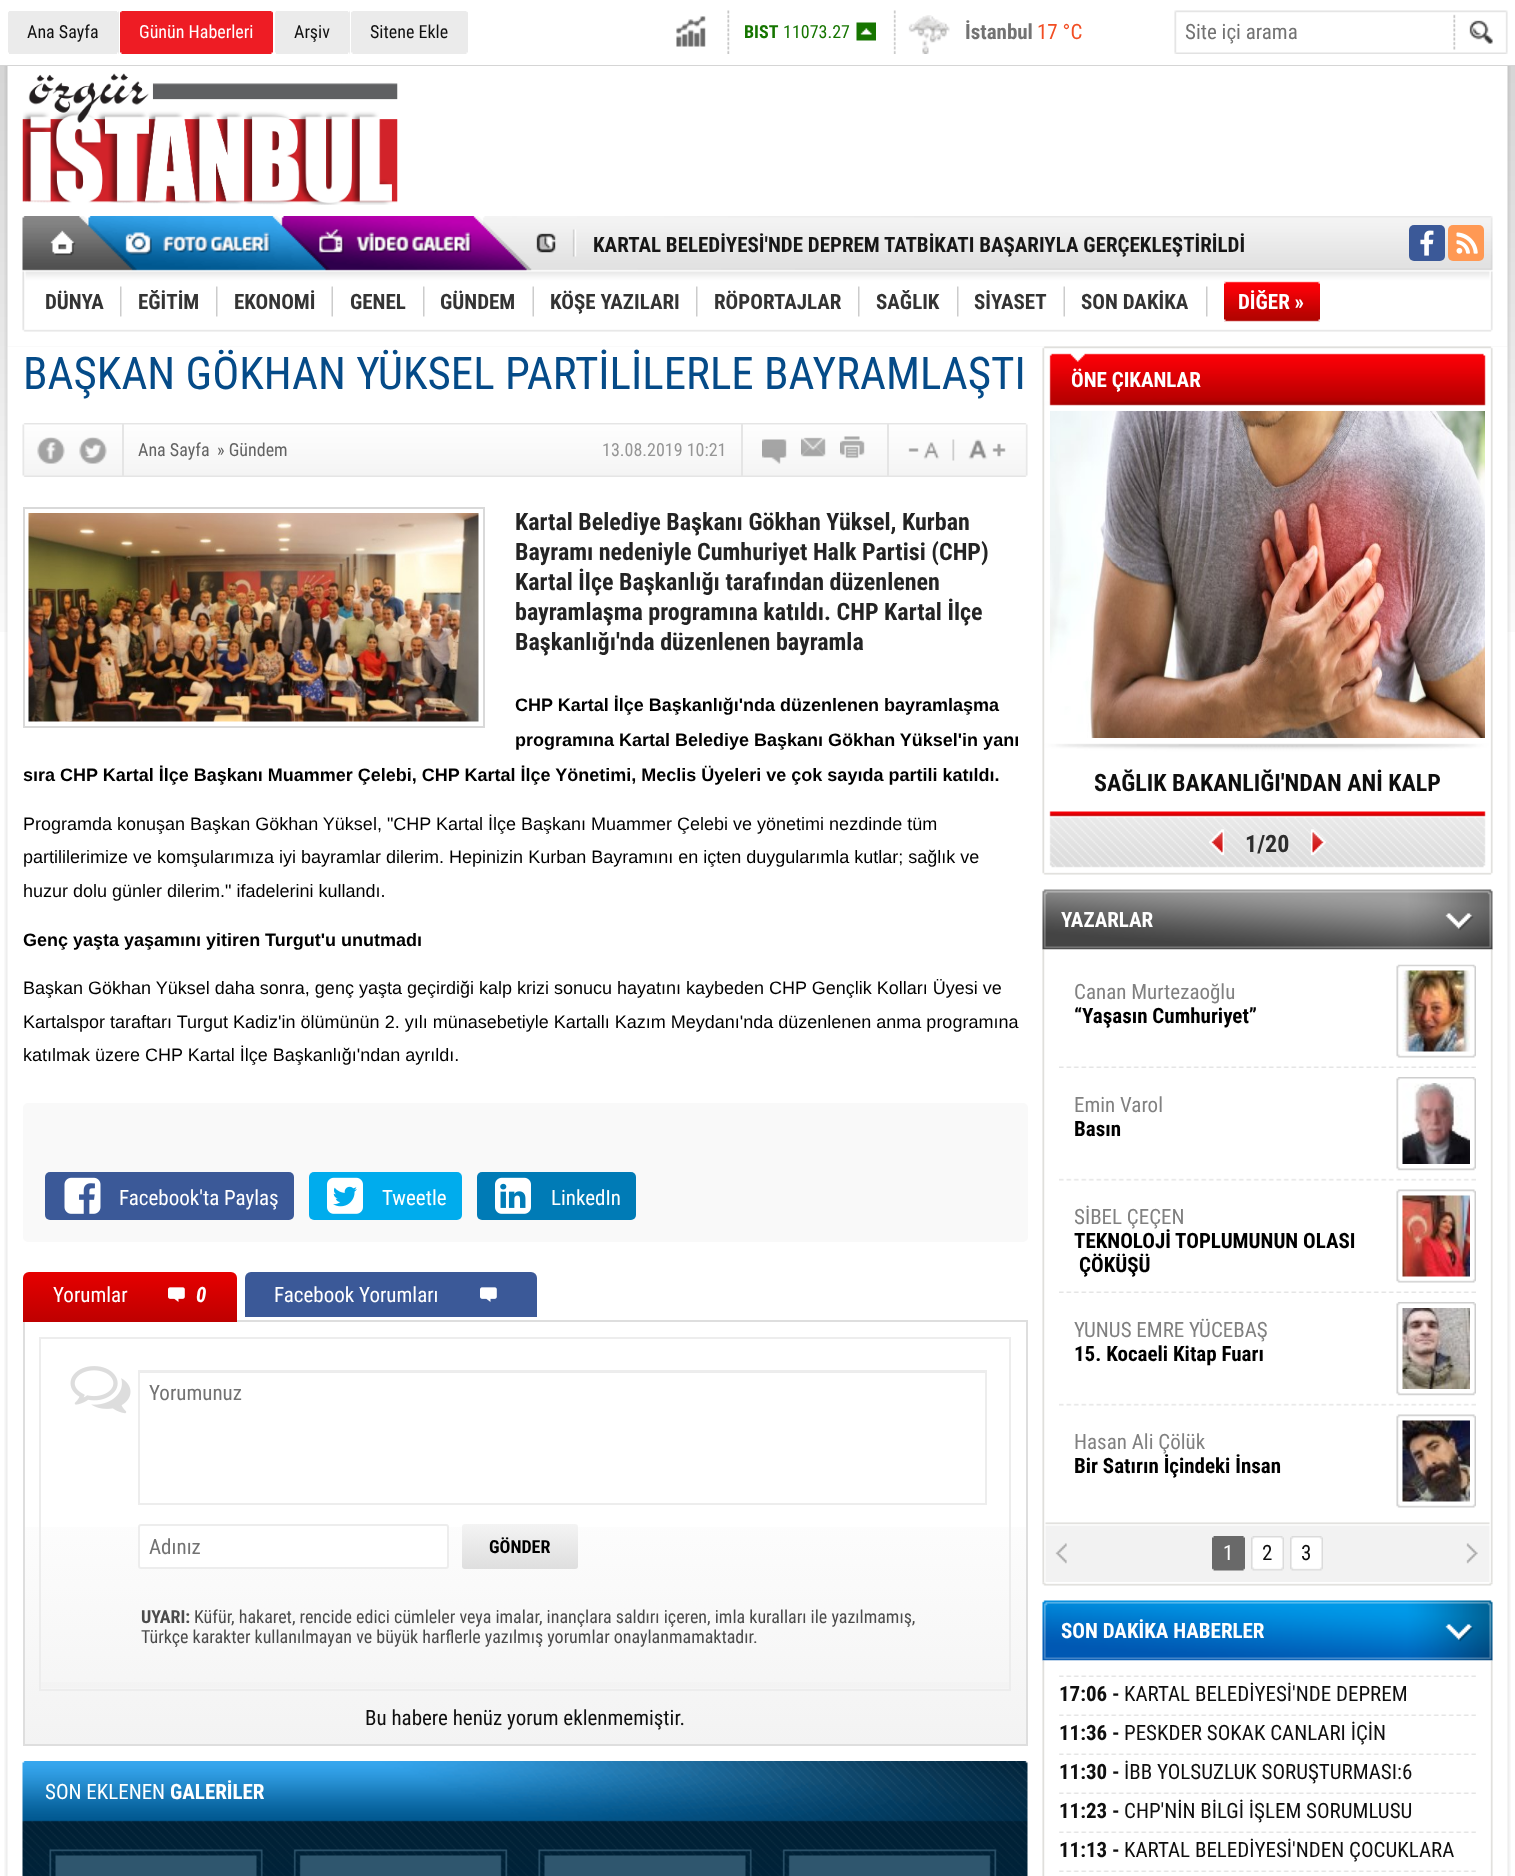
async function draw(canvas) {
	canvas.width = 1515;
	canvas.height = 1876;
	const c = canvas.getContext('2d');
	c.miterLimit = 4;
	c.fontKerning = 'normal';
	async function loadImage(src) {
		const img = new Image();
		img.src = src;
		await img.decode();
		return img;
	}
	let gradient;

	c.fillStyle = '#fff';
	c.fillRect(0, 0, 1515, 1876);
	c.drawImage(await loadImage('img1.png'), 0, 67, 1515, 565);
	c.fillStyle = '#d5d5d5';
	c.fillRect(0, 65, 1515, 2);
	c.drawImage(await loadImage('img2.png'), 676, 10, 832, 44);
	c.fillStyle = '#ebebeb';
	c.fillRect(8, 11, 111, 43);
	c.drawImage(await loadImage('img3.png'), 8, 11, 1, 43);
	c.drawImage(await loadImage('img4.png'), 117, 11, 2, 43);
	c.font = '18px Roboto Condensed';
	c.fillStyle = '#0f0f0f';
	c.fillText('Ana Sayfa', 27, 38);
	c.fillStyle = '#ee1c24';
	c.fillRect(120, 11, 153, 43);
	c.drawImage(await loadImage('img5.png'), 120, 11, 2, 43);
	c.drawImage(await loadImage('img6.png'), 271, 11, 2, 43);
	c.fillStyle = '#fff';
	c.fillText('Günün Haberleri', 139, 38);
	c.fillStyle = '#ebebeb';
	c.fillRect(275, 11, 75, 43);
	c.drawImage(await loadImage('img3.png'), 275, 11, 1, 43);
	c.drawImage(await loadImage('img4.png'), 348, 11, 2, 43);
	c.fillStyle = '#0f0f0f';
	c.fillText('Arşiv', 294, 38);
	c.fillStyle = '#ebebeb';
	c.fillRect(351, 11, 117, 43);
	c.drawImage(await loadImage('img4.png'), 351, 11, 2, 43);
	c.drawImage(await loadImage('img7.png'), 466, 11, 2, 43);
	c.fillStyle = '#0f0f0f';
	c.fillText('Sitene Ekle', 370, 38);
	c.drawImage(await loadImage('img8.png'), 856, 22, 20, 19);
	c.font = 'bold 18px Roboto Condensed';
	c.fillStyle = '#167500';
	c.fillText('BIST', 744, 38);
	c.font = '18px Roboto Condensed';
	c.fillText('11073.27', 783, 38);
	c.drawImage(await loadImage('img9.png'), 908, 15, 42, 39);
	c.font = 'bold 21px Roboto Condensed';
	c.fillStyle = '#737373';
	c.fillText('İstanbul', 965, 39);
	c.font = '21px Roboto Condensed';
	c.fillStyle = '#f24e23';
	c.fillText('17 °C', 1037, 39);
	c.fillStyle = '#737373';
	c.fillText('Site içi arama', 1185, 39);
	c.drawImage(await loadImage('img10.png'), 4, 66, 1507, 281);
	c.drawImage(await loadImage('img11.png'), 22, 216, 1471, 116);
	c.drawImage(await loadImage('img12.png'), 22, 73, 376, 132);
	c.font = 'bold 21px Roboto Condensed';
	c.fillStyle = '#171717';
	c.fillText('KARTAL BELEDİYESİ\'NDE DEPREM TATBİKATI BAŞARIYLA GERÇEKLEŞTİRİLDİ', 593, 252);
	c.fillStyle = '#3b5998';
	c.beginPath();
	c.roundRect(1409, 225, 36, 36, 5);
	c.fill();
	c.drawImage(await loadImage('img13.png'), 1420, 230, 14, 26);
	c.fillStyle = '#ff9954';
	c.beginPath();
	c.roundRect(1448, 225, 36, 36, 5);
	c.fill();
	c.drawImage(await loadImage('img14.png'), 1456, 232, 22, 22);
	c.fillStyle = '#343434';
	c.fillText('DÜNYA', 45, 309);
	c.drawImage(await loadImage('img15.png'), 120, 286, 2, 31);
	c.fillText('EĞİTİM', 138, 309);
	c.drawImage(await loadImage('img15.png'), 216, 286, 2, 31);
	c.fillText('EKONOMİ', 234, 309);
	c.drawImage(await loadImage('img16.png'), 331, 286, 2, 31);
	c.fillText('GENEL', 350, 309);
	c.drawImage(await loadImage('img15.png'), 423, 286, 2, 31);
	c.fillText('GÜNDEM', 440, 309);
	c.drawImage(await loadImage('img16.png'), 532, 286, 2, 31);
	c.fillText('KÖŞE YAZILARI', 550, 309);
	c.drawImage(await loadImage('img15.png'), 696, 286, 2, 31);
	c.fillText('RÖPORTAJLAR', 714, 309);
	c.drawImage(await loadImage('img15.png'), 858, 286, 2, 31);
	c.fillText('SAĞLIK', 876, 309);
	c.drawImage(await loadImage('img15.png'), 957, 286, 2, 31);
	c.fillText('SİYASET', 974, 309);
	c.drawImage(await loadImage('img16.png'), 1063, 286, 2, 31);
	c.fillText('SON DAKİKA', 1081, 309);
	c.drawImage(await loadImage('img15.png'), 1206, 286, 2, 31);
	c.drawImage(await loadImage('img17.png'), 1224, 281, 96, 41);
	c.drawImage(await loadImage('img18.png'), 1224, 282, 2, 40);
	c.drawImage(await loadImage('img19.png'), 1318, 282, 2, 40);
	c.fillStyle = '#fff';
	c.fillText('DİĞER »', 1238, 309);
	c.drawImage(await loadImage('img20.png'), 4, 346, 1507, 1530);
	c.font = '45px Roboto Condensed';
	c.fillStyle = '#054b88';
	c.fillText('BAŞKAN GÖKHAN YÜKSEL PARTİLİLERLE BAYRAMLAŞTI', 23, 389);
	c.drawImage(await loadImage('img21.png'), 22, 423, 1006, 54);
	c.fillStyle = '#e5e5e5';
	c.fillRect(122, 423, 2, 54);
	c.drawImage(await loadImage('img22.png'), 37, 437, 28, 27);
	c.drawImage(await loadImage('img23.png'), 79, 437, 28, 27);
	c.font = '18px Roboto Condensed';
	c.fillStyle = '#636363';
	c.fillText('Ana Sayfa', 138, 456);
	c.fillText('» Gündem', 217, 456);
	c.fillStyle = '#959595';
	c.fillText('13.08.2019 10:21', 602, 456);
	c.fillStyle = '#e5e5e5';
	c.fillRect(741, 423, 2, 54);
	c.drawImage(await loadImage('img24.png'), 762, 439, 25, 25);
	c.drawImage(await loadImage('img25.png'), 801, 437, 25, 20);
	c.drawImage(await loadImage('img26.png'), 840, 436, 25, 23);
	c.fillRect(887, 423, 2, 54);
	c.strokeStyle = '#d9d9d9';
	c.lineWidth = 2;
	c.strokeRect(24, 508, 460, 219);
	c.drawImage(await loadImage('img27.png'), 28, 513, 451, 209);
	c.font = 'bold 24px Roboto Condensed';
	c.fillStyle = '#242424';
	for (const [text, x, y] of [
		['Kartal Belediye Başkanı Gökhan Yüksel, Kurban', 515, 530],
		['Bayramı nedeniyle Cumhuriyet Halk Partisi (CHP)', 515, 560],
		['Kartal İlçe Başkanlığı tarafından düzenlenen', 515, 590],
		['bayramlaşma programına katıldı. CHP Kartal İlçe', 515, 620],
		['Başkanlığı\'nda düzenlenen bayramla', 515, 650],
	]) {
		c.fillText(text, x, y);
	}
	c.font = 'bold 18px Liberation Sans';
	c.fillStyle = '#000';
	for (const [text, x, y] of [
		['CHP Kartal İlçe Başkanlığı\'nda düzenlenen bayramlaşma', 515, 711],
		['programına Kartal Belediye Başkanı Gökhan Yüksel\'in yanı', 515, 746],
		['sıra CHP Kartal İlçe Başkanı Muammer Çelebi, CHP Kartal İlçe Yönetimi, Meclis Üyeleri ve çok sayıda partili katıldı.', 23, 781],
	]) {
		c.fillText(text, x, y);
	}
	c.font = '18px Liberation Sans';
	for (const [text, x, y] of [
		['Programda konuşan Başkan Gökhan Yüksel, "CHP Kartal İlçe Başkanı Muammer Çelebi ve yönetimi nezdinde tüm', 23, 830],
		['partililerimize ve komşularımıza iyi bayramlar dilerim. Hepinizin Kurban Bayramını en içten duygularımla kutlar; sağlık ve', 23, 863],
		['huzur dolu günler dilerim." ifadelerini kullandı.', 23, 897],
	]) {
		c.fillText(text, x, y);
	}
	c.font = 'bold 18px Liberation Sans';
	c.fillText('Genç yaşta yaşamını yitiren Turgut\'u unutmadı', 23, 946);
	c.font = '18px Liberation Sans';
	for (const [text, x, y] of [
		['Başkan Gökhan Yüksel daha sonra, genç yaşta geçirdiği kalp krizi sonucu hayatını kaybeden CHP Gençlik Kolları Üyesi ve', 23, 994],
		['Kartalspor taraftarı Turgut Kadiz\'in ölümünün 2. yılı münasebetiyle Kartallı Kazım Meydanı\'nda düzenlenen anma programına', 23, 1028],
		['katılmak üzere CHP Kartal İlçe Başkanlığı\'ndan ayrıldı.', 23, 1061],
	]) {
		c.fillText(text, x, y);
	}
	c.fillStyle = '#f9f9f9';
	c.beginPath();
	c.roundRect(23, 1103, 1005, 139, 5);
	c.fill();
	c.fillStyle = '#3b5998';
	c.beginPath();
	c.roundRect(45, 1172, 249, 48, 5);
	c.fill();
	c.drawImage(await loadImage('img28.png'), 64, 1177, 37, 37);
	c.font = '21px Roboto Condensed';
	c.fillStyle = '#fff';
	c.fillText('Facebook\'ta Paylaş', 119, 1205);
	c.fillStyle = '#00aced';
	c.beginPath();
	c.roundRect(309, 1172, 153, 48, 5);
	c.fill();
	c.drawImage(await loadImage('img29.png'), 327, 1177, 36, 37);
	c.fillStyle = '#fff';
	c.fillText('Tweetle', 382, 1205);
	c.fillStyle = '#007bb6';
	c.beginPath();
	c.roundRect(477, 1172, 159, 48, 5);
	c.fill();
	c.drawImage(await loadImage('img30.png'), 495, 1177, 36, 37);
	c.fillStyle = '#fff';
	c.fillText('LinkedIn', 551, 1205);
	gradient = c.createLinearGradient(525, 1322, 525, 1745);
	gradient.addColorStop(0.35, '#fff');
	gradient.addColorStop(1, '#f3f3f3');
	c.fillStyle = gradient;
	c.fillRect(25, 1527, 1001, 217);
	c.strokeStyle = '#dedede';
	c.strokeRect(24, 1321, 1003, 424);
	gradient = c.createLinearGradient(130, 1272, 130, 1322);
	gradient.addColorStop(0, '#e60000');
	gradient.addColorStop(1, '#be0000');
	c.fillStyle = gradient;
	c.beginPath();
	c.roundRect(23, 1272, 214, 50, [6, 6, 0, 0]);
	c.fill();
	c.fillStyle = '#fff';
	c.fillText('Yorumlar', 53, 1302);
	c.drawImage(await loadImage('img31.png'), 168, 1287, 17, 15);
	c.font = 'italic bold 21px Roboto Condensed';
	c.fillText('0', 196, 1302);
	c.fillStyle = '#3b5998';
	c.beginPath();
	c.roundRect(245, 1272, 292, 45, [6, 6, 0, 0]);
	c.fill();
	c.font = '21px Roboto Condensed';
	c.fillStyle = '#fff';
	c.fillText('Facebook Yorumları', 274, 1302);
	c.drawImage(await loadImage('img32.png'), 480, 1287, 17, 15);
	gradient = c.createLinearGradient(525, 1338, 525, 1689);
	gradient.addColorStop(0.5, '#fff');
	gradient.addColorStop(1, '#f3f3f3');
	c.fillStyle = gradient;
	c.fillRect(41, 1682, 968, 6);
	c.strokeStyle = '#ededed';
	c.strokeRect(40, 1338, 970, 352);
	c.drawImage(await loadImage('img33.png'), 70, 1366, 61, 48);
	c.fillStyle = '#ececec';
	c.fillRect(140, 1372, 846, 1);
	c.strokeRect(139, 1371, 847, 133);
	c.fillStyle = '#737373';
	c.fillText('Yorumunuz', 149, 1400);
	c.fillStyle = '#fff';
	c.beginPath();
	c.roundRect(139, 1525, 309, 43, 2);
	c.fill();
	c.stroke();
	c.fillStyle = '#737373';
	c.fillText('Adınız', 149, 1554);
	gradient = c.createLinearGradient(520, 1524, 520, 1569);
	gradient.addColorStop(0, '#f4f4f4');
	gradient.addColorStop(1, '#dedede');
	c.fillStyle = gradient;
	c.beginPath();
	c.roundRect(462, 1524, 116, 45, 3);
	c.fill();
	c.font = 'bold 18px Roboto Condensed';
	c.fillStyle = '#000';
	c.fillText('GÖNDER', 489, 1553);
	c.fillStyle = '#4b4b4b';
	c.fillText('UYARI:', 141, 1623);
	c.font = '18px Roboto Condensed';
	c.fillText('Küfür, hakaret, rencide edici cümleler veya imalar, inançlara saldırı içeren, imla kuralları ile yazılmamış,', 194, 1623);
	c.fillText('Türkçe karakter kullanılmayan ve büyük harflerle yazılmış yorumlar onaylanmamaktadır.', 141, 1643);
	c.font = '21px Roboto Condensed';
	c.fillStyle = '#0f0f0f';
	c.fillText('Bu habere henüz yorum eklenmemiştir.', 365, 1725);
	c.drawImage(await loadImage('img34.png'), 22, 1761, 1006, 115);
	c.fillStyle = '#fff';
	c.fillText('SON EKLENEN', 45, 1799);
	c.font = 'bold 21px Roboto Condensed';
	c.fillText('GALERİLER', 170, 1799);
	c.drawImage(await loadImage('img35.png'), 1042, 346, 451, 529);
	c.fillText('ÖNE ÇIKANLAR', 1071, 387);
	c.drawImage(await loadImage('img36.png'), 1050, 411, 435, 327);
	c.font = 'bold 24px Roboto Condensed';
	c.fillStyle = '#0f0f0f';
	c.fillText('SAĞLIK BAKANLIĞI\'NDAN ANİ KALP', 1094, 791);
	c.drawImage(await loadImage('img37.png'), 1209, 829, 15, 26);
	c.fillStyle = '#2d2d2d';
	c.fillText('1/20', 1245, 852);
	c.drawImage(await loadImage('img38.png'), 1311, 829, 15, 26);
	c.drawImage(await loadImage('img39.png'), 1042, 889, 451, 61);
	c.font = 'bold 21px Roboto Condensed';
	c.fillStyle = '#fff';
	c.fillText('YAZARLAR', 1061, 927);
	c.drawImage(await loadImage('img55.png'), 1042, 1582, 451, 4);
	c.drawImage(await loadImage('img40.png'), 1042, 949, 451, 634);
	c.drawImage(await loadImage('img41.png'), 1059, 964, 417, 104);
	c.font = '21px Roboto Condensed';
	c.fillStyle = '#818181';
	c.fillText('Canan Murtezaoğlu', 1074, 999);
	c.font = 'bold 21px Roboto Condensed';
	c.fillStyle = '#000';
	c.fillText('“Yaşasın Cumhuriyet”', 1074, 1023);
	c.drawImage(await loadImage('img42.png'), 1402, 970, 68, 82);
	c.drawImage(await loadImage('img43.png'), 1059, 1077, 417, 104);
	c.font = '21px Roboto Condensed';
	c.fillStyle = '#818181';
	c.fillText('Emin Varol', 1074, 1112);
	c.font = 'bold 21px Roboto Condensed';
	c.fillStyle = '#000';
	c.fillText('Basın', 1074, 1136);
	c.drawImage(await loadImage('img44.png'), 1402, 1083, 68, 81);
	c.drawImage(await loadImage('img45.png'), 1059, 1189, 417, 104);
	c.font = '21px Roboto Condensed';
	c.fillStyle = '#818181';
	c.fillText('SİBEL ÇEÇEN', 1074, 1224);
	c.font = 'bold 21px Roboto Condensed';
	c.fillStyle = '#000';
	c.fillText('TEKNOLOJİ TOPLUMUNUN OLASI', 1074, 1248);
	c.fillText('ÇÖKÜŞÜ', 1079, 1272);
	c.drawImage(await loadImage('img46.png'), 1402, 1195, 68, 82);
	c.drawImage(await loadImage('img43.png'), 1059, 1302, 417, 104);
	c.font = '21px Roboto Condensed';
	c.fillStyle = '#818181';
	c.fillText('YUNUS EMRE YÜCEBAŞ', 1074, 1337);
	c.font = 'bold 21px Roboto Condensed';
	c.fillStyle = '#000';
	c.fillText('15. Kocaeli Kitap Fuarı', 1074, 1361);
	c.drawImage(await loadImage('img47.png'), 1402, 1308, 68, 81);
	c.drawImage(await loadImage('img48.png'), 1396, 1414, 80, 94);
	c.font = '21px Roboto Condensed';
	c.fillStyle = '#818181';
	c.fillText('Hasan Ali Çölük', 1074, 1449);
	c.font = 'bold 21px Roboto Condensed';
	c.fillStyle = '#000';
	c.fillText('Bir Satırın İçindeki İnsan', 1074, 1473);
	c.drawImage(await loadImage('img49.png'), 1402, 1420, 68, 82);
	c.drawImage(await loadImage('img50.png'), 1045, 1522, 445, 60);
	c.drawImage(await loadImage('img51.png'), 1055, 1543, 12, 21);
	c.drawImage(await loadImage('img52.png'), 1212, 1536, 33, 35);
	c.font = '21px Roboto Condensed';
	c.fillStyle = '#fff';
	c.fillText('1', 1223, 1560);
	c.drawImage(await loadImage('img53.png'), 1251, 1536, 33, 35);
	c.fillStyle = '#0f0f0f';
	c.fillText('2', 1262, 1560);
	c.drawImage(await loadImage('img53.png'), 1290, 1536, 33, 35);
	c.fillText('3', 1301, 1560);
	c.drawImage(await loadImage('img54.png'), 1466, 1543, 12, 21);
	c.drawImage(await loadImage('img56.png'), 1042, 1600, 451, 61);
	c.font = 'bold 21px Roboto Condensed';
	c.fillStyle = '#fff';
	c.fillText('SON DAKİKA HABERLER', 1061, 1638);
	c.drawImage(await loadImage('img57.png'), 1042, 1660, 451, 216);
	c.drawImage(await loadImage('img58.png'), 1059, 1675, 417, 2);
	c.fillStyle = '#0f0f0f';
	c.fillText('17:06 -', 1059, 1701);
	c.font = '21px Roboto Condensed';
	c.fillText('KARTAL BELEDİYESİ\'NDE DEPREM', 1124, 1701);
	c.drawImage(await loadImage('img58.png'), 1059, 1714, 417, 2);
	c.font = 'bold 21px Roboto Condensed';
	c.fillText('11:36 -', 1059, 1740);
	c.font = '21px Roboto Condensed';
	c.fillText('PESKDER SOKAK CANLARI İÇİN', 1124, 1740);
	c.drawImage(await loadImage('img58.png'), 1059, 1753, 417, 2);
	c.font = 'bold 21px Roboto Condensed';
	c.fillText('11:30 -', 1059, 1779);
	c.font = '21px Roboto Condensed';
	c.fillText('İBB YOLSUZLUK SORUŞTURMASI:6', 1124, 1779);
	c.drawImage(await loadImage('img58.png'), 1059, 1792, 417, 2);
	c.font = 'bold 21px Roboto Condensed';
	c.fillText('11:23 -', 1059, 1818);
	c.font = '21px Roboto Condensed';
	c.fillText('CHP\'NİN BİLGİ İŞLEM SORUMLUSU', 1124, 1818);
	c.drawImage(await loadImage('img58.png'), 1059, 1831, 417, 2);
	c.font = 'bold 21px Roboto Condensed';
	c.fillText('11:13 -', 1059, 1857);
	c.font = '21px Roboto Condensed';
	c.fillText('KARTAL BELEDİYESİ\'NDEN ÇOCUKLARA', 1124, 1857);
	c.drawImage(await loadImage('img58.png'), 1059, 1870, 417, 2);
}

draw(document.querySelector('canvas'));
